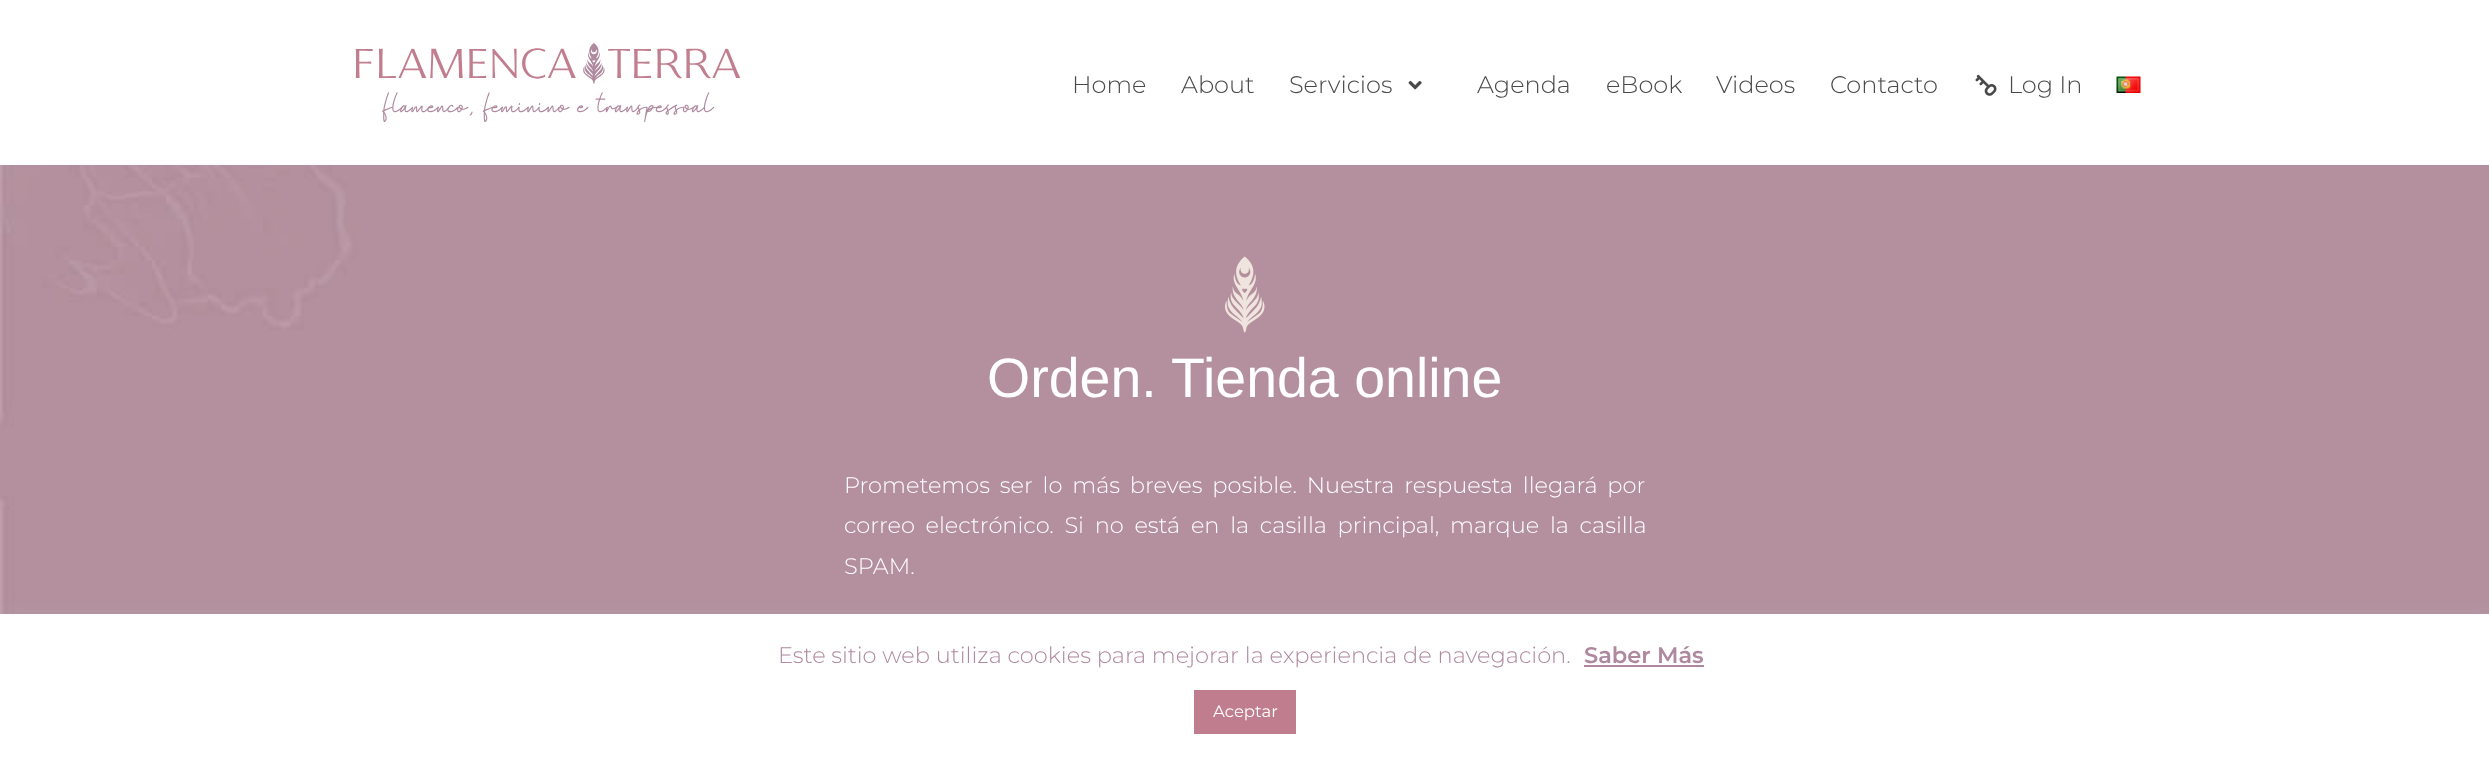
async function draw(canvas) {
	canvas.width = 2489;
	canvas.height = 766;
	const c = canvas.getContext('2d');
	c.miterLimit = 4;
	c.fontKerning = 'normal';
	async function loadImage(src) {
		const img = new Image();
		img.src = src;
		await img.decode();
		return img;
	}

	c.fillStyle = '#fff';
	c.fillRect(0, 0, 2489, 766);
	c.drawImage(await loadImage('img1.png'), 355, 43, 386, 79);
	c.font = '300 24px Montserrat';
	c.fillStyle = '#494949';
	for (const [text, x, y] of [
		['Home', 1072, 93],
		['About', 1181, 93],
		['Servicios', 1289, 93],
	]) {
		c.fillText(text, x, y);
	}
	c.drawImage(await loadImage('img2.png'), 1408, 80, 14, 10);
	for (const [text, x, y] of [
		['Agenda', 1477, 93],
		['eBook', 1606, 93],
		['Videos', 1716, 93],
		['Contacto', 1830, 93],
	]) {
		c.fillText(text, x, y);
	}
	c.drawImage(await loadImage('img3.png'), 1975, 74, 22, 22);
	c.fillText('Log In', 2008, 93);
	c.drawImage(await loadImage('img4.png'), 2116, 76, 25, 17);
	c.drawImage(await loadImage('img5.png'), 0, 165, 2489, 449);
	c.drawImage(await loadImage('img6.png'), 1225, 256, 40, 77);
	c.font = '55.5px Liberation Sans';
	c.fillStyle = '#fff';
	c.fillText('Orden. Tienda online', 987, 397);
	c.wordSpacing = '4px';
	c.font = '300 22.5px Montserrat';
	c.fillText('Prometemos ser lo más breves posible. Nuestra respuesta llegará por', 844, 493);
	c.wordSpacing = '4.9px';
	c.fillText('correo electrónico. Si no está en la casilla principal, marque la casilla', 844, 533);
	c.wordSpacing = '0px';
	c.fillText('SPAM.', 844, 574);
	c.fillStyle = '#acabab4d';
	c.filter = 'blur(7.5px)';
	c.beginPath();
	c.rect(0, 612, 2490, 153);
	c.fill();
	c.filter = 'none';
	c.fillStyle = '#fff';
	c.fillRect(0, 614, 2489, 152);
	c.fillStyle = '#ae889e';
	c.fillText('Este sitio web utiliza cookies para mejorar la experiencia de navegación.', 778, 663);
	c.font = '600 22.5px Montserrat';
	c.fillText('Saber Más', 1584, 663);
	c.fillRect(1584, 665, 120, 2);
	c.fillStyle = '#c07d8d';
	c.fillRect(1194, 690, 102, 44);
	c.font = '16.5px Montserrat';
	c.fillStyle = '#fff';
	c.fillText('Aceptar', 1213, 717);
}

draw(document.querySelector('canvas'));
